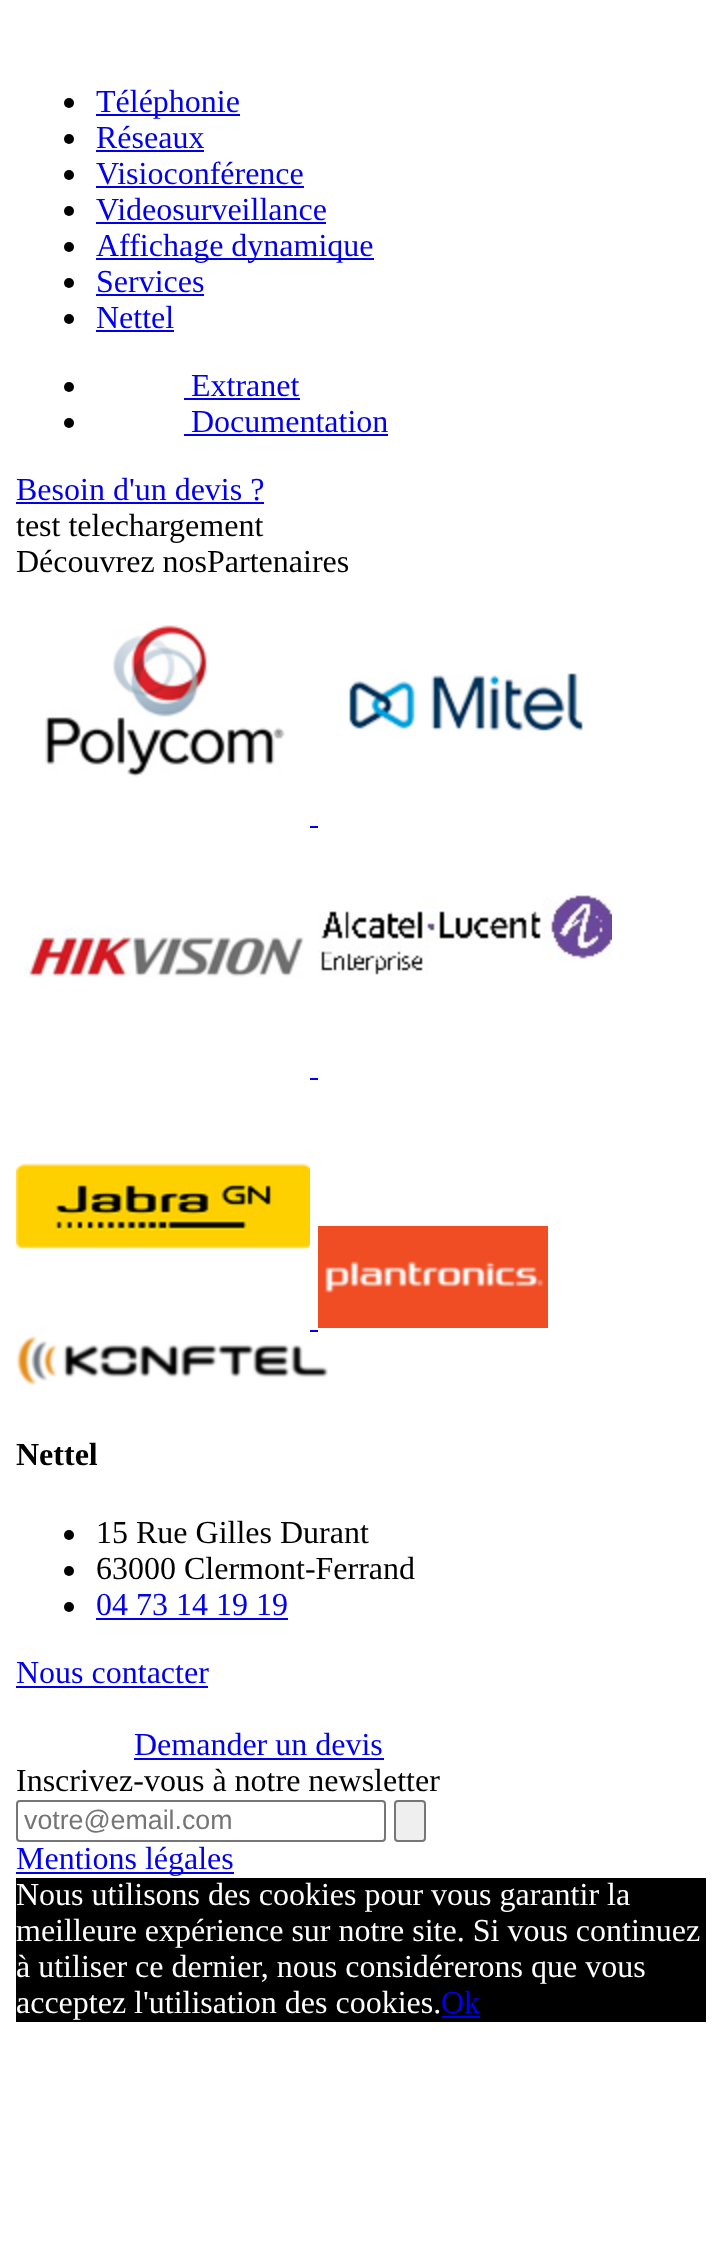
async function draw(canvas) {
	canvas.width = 722;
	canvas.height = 2257;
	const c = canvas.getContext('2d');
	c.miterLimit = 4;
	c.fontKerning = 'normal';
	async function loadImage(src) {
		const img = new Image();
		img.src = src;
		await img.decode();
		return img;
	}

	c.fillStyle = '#fff';
	c.fillRect(0, 0, 722, 2257);
	c.fillStyle = '#000';
	c.beginPath();
	c.arc(69, 103, 5, 0, 2 * Math.PI);
	c.fill();
	c.fillStyle = '#00e';
	c.fillRect(96, 114, 144, 2);
	c.font = '32px Liberation Serif';
	c.fillText('Téléphonie', 96, 112);
	c.fillStyle = '#000';
	c.beginPath();
	c.arc(69, 139, 5, 0, 2 * Math.PI);
	c.fill();
	c.fillStyle = '#00e';
	c.fillText('Réseaux', 96, 148);
	c.fillRect(96, 150, 108, 2);
	c.fillStyle = '#000';
	c.beginPath();
	c.arc(69, 175, 5, 0, 2 * Math.PI);
	c.fill();
	c.fillStyle = '#00e';
	c.fillText('Visioconférence', 96, 184);
	c.fillRect(96, 186, 208, 2);
	c.fillStyle = '#000';
	c.beginPath();
	c.arc(69, 211, 5, 0, 2 * Math.PI);
	c.fill();
	c.fillStyle = '#00e';
	c.fillText('Videosurveillance', 96, 220);
	c.fillRect(96, 222, 230, 2);
	c.fillStyle = '#000';
	c.beginPath();
	c.arc(69, 247, 5, 0, 2 * Math.PI);
	c.fill();
	c.fillStyle = '#00e';
	c.fillRect(96, 258, 278, 2);
	c.fillText('Affichage dynamique', 96, 256);
	c.fillStyle = '#000';
	c.beginPath();
	c.arc(69, 283, 5, 0, 2 * Math.PI);
	c.fill();
	c.fillStyle = '#00e';
	c.fillText('Services', 96, 292);
	c.fillRect(96, 294, 108, 2);
	c.fillStyle = '#000';
	c.beginPath();
	c.arc(69, 319, 5, 0, 2 * Math.PI);
	c.fill();
	c.fillStyle = '#00e';
	c.fillText('Nettel', 96, 328);
	c.fillRect(96, 330, 78, 2);
	c.fillStyle = '#000';
	c.beginPath();
	c.arc(69, 387, 5, 0, 2 * Math.PI);
	c.fill();
	c.fillStyle = '#00e';
	c.fillText('Extranet', 191, 396);
	c.fillRect(184, 398, 116, 2);
	c.fillStyle = '#000';
	c.beginPath();
	c.arc(69, 423, 5, 0, 2 * Math.PI);
	c.fill();
	c.fillStyle = '#00e';
	c.fillText('Documentation', 191, 432);
	c.fillRect(184, 434, 204, 2);
	c.fillText('Besoin d\'un devis ?', 16, 500);
	c.fillRect(16, 502, 248, 2);
	c.fillStyle = '#000';
	c.fillText('test telechargement', 16, 536);
	c.fillText('Découvrez nosPartenaires', 16, 572);
	c.drawImage(await loadImage('img1.png'), 45, 625, 240, 152);
	c.drawImage(await loadImage('img2.png'), 349, 673, 234, 58);
	c.fillStyle = '#00e';
	c.fillRect(310, 826, 8, 2);
	c.drawImage(await loadImage('img3.png'), 24, 930, 280, 48);
	c.drawImage(await loadImage('img4.png'), 318, 895, 294, 80);
	c.fillRect(310, 1078, 8, 2);
	c.drawImage(await loadImage('img5.png'), 16, 1163, 294, 86);
	c.drawImage(await loadImage('img6.png'), 318, 1226, 230, 102);
	c.fillRect(310, 1330, 8, 2);
	c.drawImage(await loadImage('img7.png'), 16, 1336, 312, 50);
	c.font = 'bold 32px Liberation Serif';
	c.fillStyle = '#000';
	c.fillText('Nettel', 16, 1465);
	c.beginPath();
	c.arc(69, 1535, 5, 0, 2 * Math.PI);
	c.fill();
	c.font = '32px Liberation Serif';
	c.fillText('15 Rue Gilles Durant', 96, 1543);
	c.beginPath();
	c.arc(69, 1571, 5, 0, 2 * Math.PI);
	c.fill();
	c.fillText('63000 Clermont-Ferrand', 96, 1579);
	c.beginPath();
	c.arc(69, 1607, 5, 0, 2 * Math.PI);
	c.fill();
	c.fillStyle = '#00e';
	c.fillText('04 73 14 19 19', 96, 1615);
	c.fillRect(96, 1618, 192, 2);
	c.fillText('Nous contacter', 16, 1683);
	c.fillRect(16, 1686, 192, 2);
	c.fillText('Demander un devis', 134, 1755);
	c.fillRect(134, 1758, 250, 2);
	c.fillStyle = '#000';
	c.fillText('Inscrivez-vous à notre newsletter', 16, 1791);
	c.beginPath();
	c.roundRect(17, 1801, 368, 40, 3);
	c.strokeStyle = '#767676';
	c.lineWidth = 2;
	c.stroke();
	c.font = '26.75px Liberation Sans';
	c.fillStyle = '#757575';
	c.fillText('votre@email.com', 24, 1829);
	c.fillStyle = '#efefef';
	c.beginPath();
	c.roundRect(395, 1801, 30, 40, 3);
	c.fill();
	c.stroke();
	c.fillStyle = '#00e';
	c.fillRect(16, 1872, 218, 2);
	c.font = '32px Liberation Serif';
	c.fillText('Mentions légales', 16, 1869);
	c.fillStyle = '#000';
	c.fillRect(16, 1878, 690, 144);
	c.fillStyle = '#fff';
	for (const [text, x, y] of [
		['Nous utilisons des cookies pour vous garantir la', 16, 1905],
		['meilleure expérience sur notre site. Si vous continuez', 16, 1941],
		['à utiliser ce dernier, nous considérerons que vous', 16, 1977],
		['acceptez l\'utilisation des cookies.', 16, 2013],
	]) {
		c.fillText(text, x, y);
	}
	c.fillStyle = '#00e';
	c.fillText('Ok', 441, 2013);
	c.fillRect(442, 2016, 38, 2);
}

draw(document.querySelector('canvas'));
